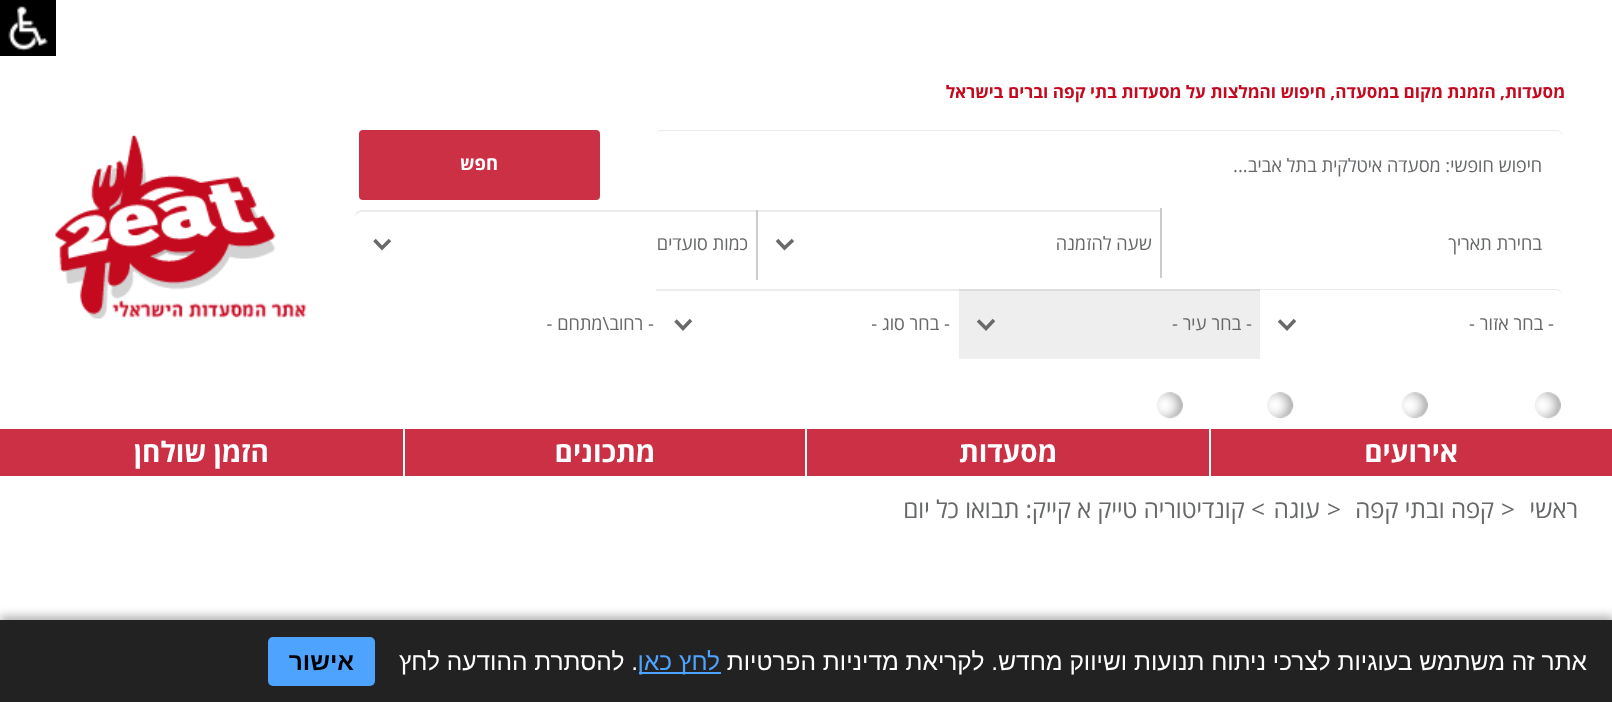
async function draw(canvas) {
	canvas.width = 1612;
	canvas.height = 702;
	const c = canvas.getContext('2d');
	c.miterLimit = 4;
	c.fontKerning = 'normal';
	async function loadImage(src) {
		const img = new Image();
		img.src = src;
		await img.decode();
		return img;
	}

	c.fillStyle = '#fff';
	c.fillRect(0, 0, 1612, 702);
	c.fillStyle = '#000';
	c.fillRect(0, 0, 56, 56);
	c.drawImage(await loadImage('img1.png'), 8, 5, 40, 46);
	c.direction = 'rtl';
	c.font = 'bold 17.15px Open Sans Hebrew';
	c.fillStyle = '#c50a20';
	c.fillText('מסעדות, הזמנת מקום במסעדה, חיפוש והמלצות על מסעדות בתי קפה וברים בישראל', 1565, 98);
	c.fillStyle = '#ececec';
	c.beginPath();
	c.moveTo(662, 131);
	c.lineTo(1556, 131);
	c.bezierCurveTo(1560, 131, 1563, 134, 1563, 138);
	c.lineTo(1563, 137);
	c.bezierCurveTo(1563, 133, 1560, 130, 1556, 130);
	c.lineTo(662, 130);
	c.bezierCurveTo(659, 130, 657, 131, 656, 134);
	c.bezierCurveTo(657, 132, 660, 131, 662, 131);
	c.closePath();
	c.fill();
	c.font = '18.4px Open Sans Hebrew';
	c.fillStyle = '#66686a';
	c.fillText('חיפוש חופשי: מסעדה איטלקית בתל אביב...', 1542, 172);
	c.fillStyle = '#cc3045';
	c.beginPath();
	c.roundRect(359, 130, 241, 70, 4);
	c.fill();
	c.font = 'bold 18.4px Open Sans Hebrew';
	c.fillStyle = '#fff';
	c.fillText('חפש', 498, 170);
	c.fillStyle = '#ccc';
	c.fillRect(1160, 208, 2, 70);
	c.font = '18.4px Open Sans Hebrew';
	c.fillStyle = '#66686a';
	c.fillText('בחירת תאריך', 1542, 250);
	c.beginPath();
	c.moveTo(793, 240);
	c.lineTo(784.5, 248);
	c.lineTo(777, 240);
	c.strokeStyle = '#696969';
	c.lineWidth = 3.5;
	c.stroke();
	c.fillStyle = '#ececec';
	c.fillRect(758, 210, 402, 2);
	c.fillStyle = '#66686a';
	c.fillText('שעה להזמנה', 1152, 250);
	c.fillStyle = '#ccc';
	c.fillRect(756, 210, 2, 70);
	c.beginPath();
	c.moveTo(390, 240);
	c.lineTo(382, 248);
	c.lineTo(374.5, 240);
	c.stroke();
	c.fillStyle = '#ececec';
	c.beginPath();
	c.moveTo(362, 212);
	c.lineTo(756, 212);
	c.lineTo(756, 210);
	c.lineTo(362, 210);
	c.bezierCurveTo(358, 210, 355, 213, 355, 217);
	c.lineTo(355, 219);
	c.bezierCurveTo(355, 215, 358, 212, 362, 212);
	c.closePath();
	c.fill();
	c.fillStyle = '#66686a';
	c.fillText('כמות סועדים', 748, 250);
	c.beginPath();
	c.moveTo(1295, 320);
	c.lineTo(1287, 328.5);
	c.lineTo(1279, 320.5);
	c.stroke();
	c.fillStyle = '#ececec';
	c.beginPath();
	c.moveTo(1260, 290);
	c.lineTo(1556, 290);
	c.bezierCurveTo(1560, 290, 1563, 294, 1563, 298);
	c.bezierCurveTo(1563, 294, 1561, 289, 1556, 289);
	c.lineTo(1260, 289);
	c.closePath();
	c.fill();
	c.fillStyle = '#66686a';
	c.fillText('- בחר אזור -', 1554, 330);
	c.fillStyle = '#eee';
	c.fillRect(959, 291, 301, 68);
	c.beginPath();
	c.moveTo(994, 320);
	c.lineTo(986, 328.5);
	c.lineTo(978, 320.5);
	c.stroke();
	c.fillStyle = '#dcdcdc';
	c.fillRect(959, 289, 301, 2);
	c.fillStyle = '#66686a';
	c.fillText('- בחר עיר -', 1252, 330);
	c.beginPath();
	c.moveTo(691, 320);
	c.lineTo(683, 328.5);
	c.lineTo(675.5, 320.5);
	c.stroke();
	c.fillStyle = '#ececec';
	c.fillRect(656, 289, 303, 2);
	c.fillStyle = '#66686a';
	c.fillText('- בחר סוג -', 950, 330);
	c.fillText('- רחוב\\מתחם -', 654, 330);
	c.drawImage(await loadImage('img2.png'), 1534, 392, 27, 27);
	c.drawImage(await loadImage('img3.png'), 1401, 392, 27, 27);
	c.drawImage(await loadImage('img4.png'), 1267, 392, 27, 27);
	c.drawImage(await loadImage('img2.png'), 1156, 392, 27, 27);
	c.drawImage(await loadImage('img5.png'), 55, 135, 251, 184);
	c.fillStyle = '#cc3045';
	c.fillRect(1211, 429, 401, 47);
	c.font = 'bold 28px Open Sans Hebrew';
	c.fillStyle = '#fff';
	c.fillText('אירועים', 1458, 462);
	c.fillStyle = '#cc3045';
	c.fillRect(807, 429, 402, 47);
	c.fillStyle = '#fff';
	c.fillText('מסעדות', 1057, 462);
	c.fillStyle = '#cc3045';
	c.fillRect(405, 429, 400, 47);
	c.fillStyle = '#fff';
	c.fillText('מתכונים', 655, 462);
	c.fillStyle = '#cc3045';
	c.fillRect(0, 429, 403, 47);
	c.fillStyle = '#fff';
	c.fillText('הזמן שולחן', 269, 462);
	c.font = '24.5px Open Sans Hebrew';
	c.fillStyle = '#66686a';
	c.fillText('ראשי', 1578, 518);
	c.direction = 'ltr';
	c.fillText('>', 1501, 518);
	c.direction = 'rtl';
	c.fillText('קפה ובתי קפה', 1494, 518);
	c.direction = 'ltr';
	c.fillText('>', 1327, 518);
	c.direction = 'rtl';
	c.fillText('עוגה', 1320, 518);
	c.fillText('> קונדיטוריה טייק א קייק: תבואו כל יום', 1265, 518);
	c.fillStyle = '#0000004d';
	c.filter = 'blur(5px)';
	c.beginPath();
	c.rect(0, 616, 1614, 84);
	c.fill();
	c.filter = 'none';
	c.fillStyle = '#222';
	c.fillRect(0, 620, 1612, 82);
	c.font = '24.5px Liberation Sans';
	c.fillStyle = '#fff';
	c.fillText('אתר זה משתמש בעוגיות לצרכי ניתוח תנועות ושיווק מחדש. לקריאת מדיניות הפרטיות', 1587, 670);
	c.fillStyle = '#4ea3ff';
	c.fillRect(639, 672, 82, 2);
	c.fillText('לחץ כאן', 720, 670);
	c.fillStyle = '#fff';
	c.fillText('. להסתרת ההודעה לחץ', 638, 670);
	c.fillStyle = '#4ea3ff';
	c.beginPath();
	c.roundRect(268, 637, 107, 49, 5);
	c.fill();
	c.font = 'bold 24.5px Liberation Sans';
	c.fillStyle = '#000';
	c.fillText('אישור', 354, 670);
}

draw(document.querySelector('canvas'));
